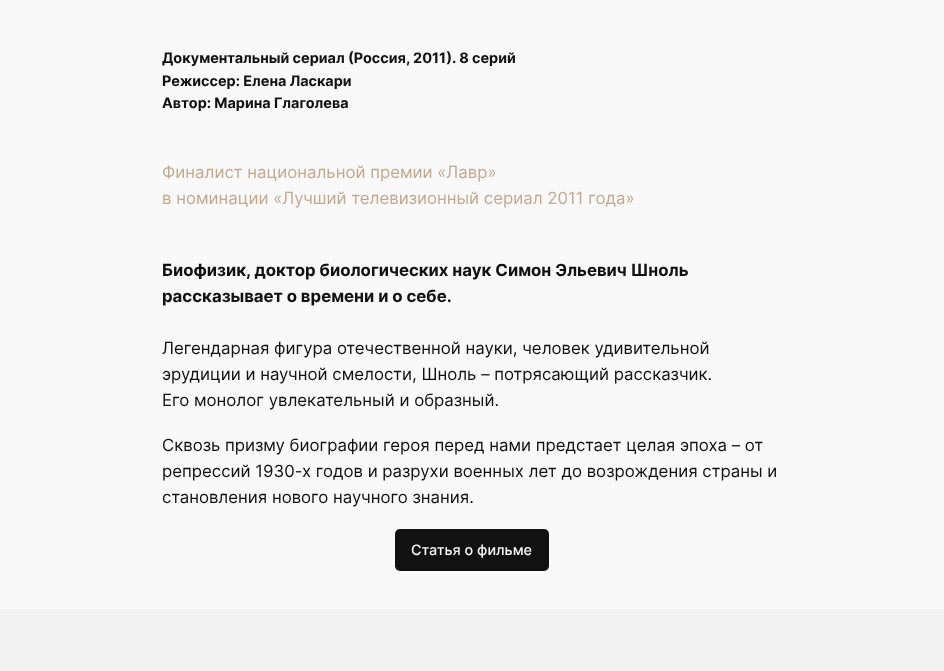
async function draw(canvas) {
	canvas.width = 944;
	canvas.height = 671;
	const c = canvas.getContext('2d');
	c.miterLimit = 4;
	c.fontKerning = 'normal';

	c.fillStyle = '#f9f9f9';
	c.fillRect(0, 0, 944, 671);
	c.font = 'bold 14.4px Inter';
	c.fillStyle = '#111';
	for (const [text, x, y] of [
		['Документальный сериал (Россия, 2011). 8 серий', 162, 63],
		['Режиссер: Елена Ласкари', 162, 86],
		['Автор: Марина Глаголева', 162, 108],
	]) {
		c.fillText(text, x, y);
	}
	c.font = '16.8px Inter';
	c.fillStyle = '#c2a990';
	c.fillText('Финалист национальной премии «Лавр»', 162, 178);
	c.fillText('в номинации «Лучший телевизионный сериал 2011 года»', 162, 204);
	c.font = 'bold 16.8px Inter';
	c.fillStyle = '#111';
	c.fillText('Биофизик, доктор биологических наук Симон Эльевич Шноль', 162, 276);
	c.fillText('рассказывает о времени и о себе.', 162, 302);
	c.font = '16.8px Inter';
	for (const [text, x, y] of [
		['Легендарная фигура отечественной науки, человек удивительной', 162, 354],
		['эрудиции и научной смелости, Шноль – потрясающий рассказчик.', 162, 380],
		['Его монолог увлекательный и образный.', 162, 406],
		['Сквозь призму биографии героя перед нами предстает целая эпоха – от', 162, 451],
		['репрессий 1930-х годов и разрухи военных лет до возрождения страны и', 162, 477],
		['становления нового научного знания.', 162, 503],
	]) {
		c.fillText(text, x, y);
	}
	c.beginPath();
	c.roundRect(395, 529, 154, 42, 5);
	c.fill();
	c.font = '500 14.4px Inter';
	c.fillStyle = '#f9f9f9';
	c.fillText('Статья о фильме', 411, 555);
	c.fillStyle = '#f2f2f2';
	c.fillRect(0, 609, 944, 62);
}

draw(document.querySelector('canvas'));
